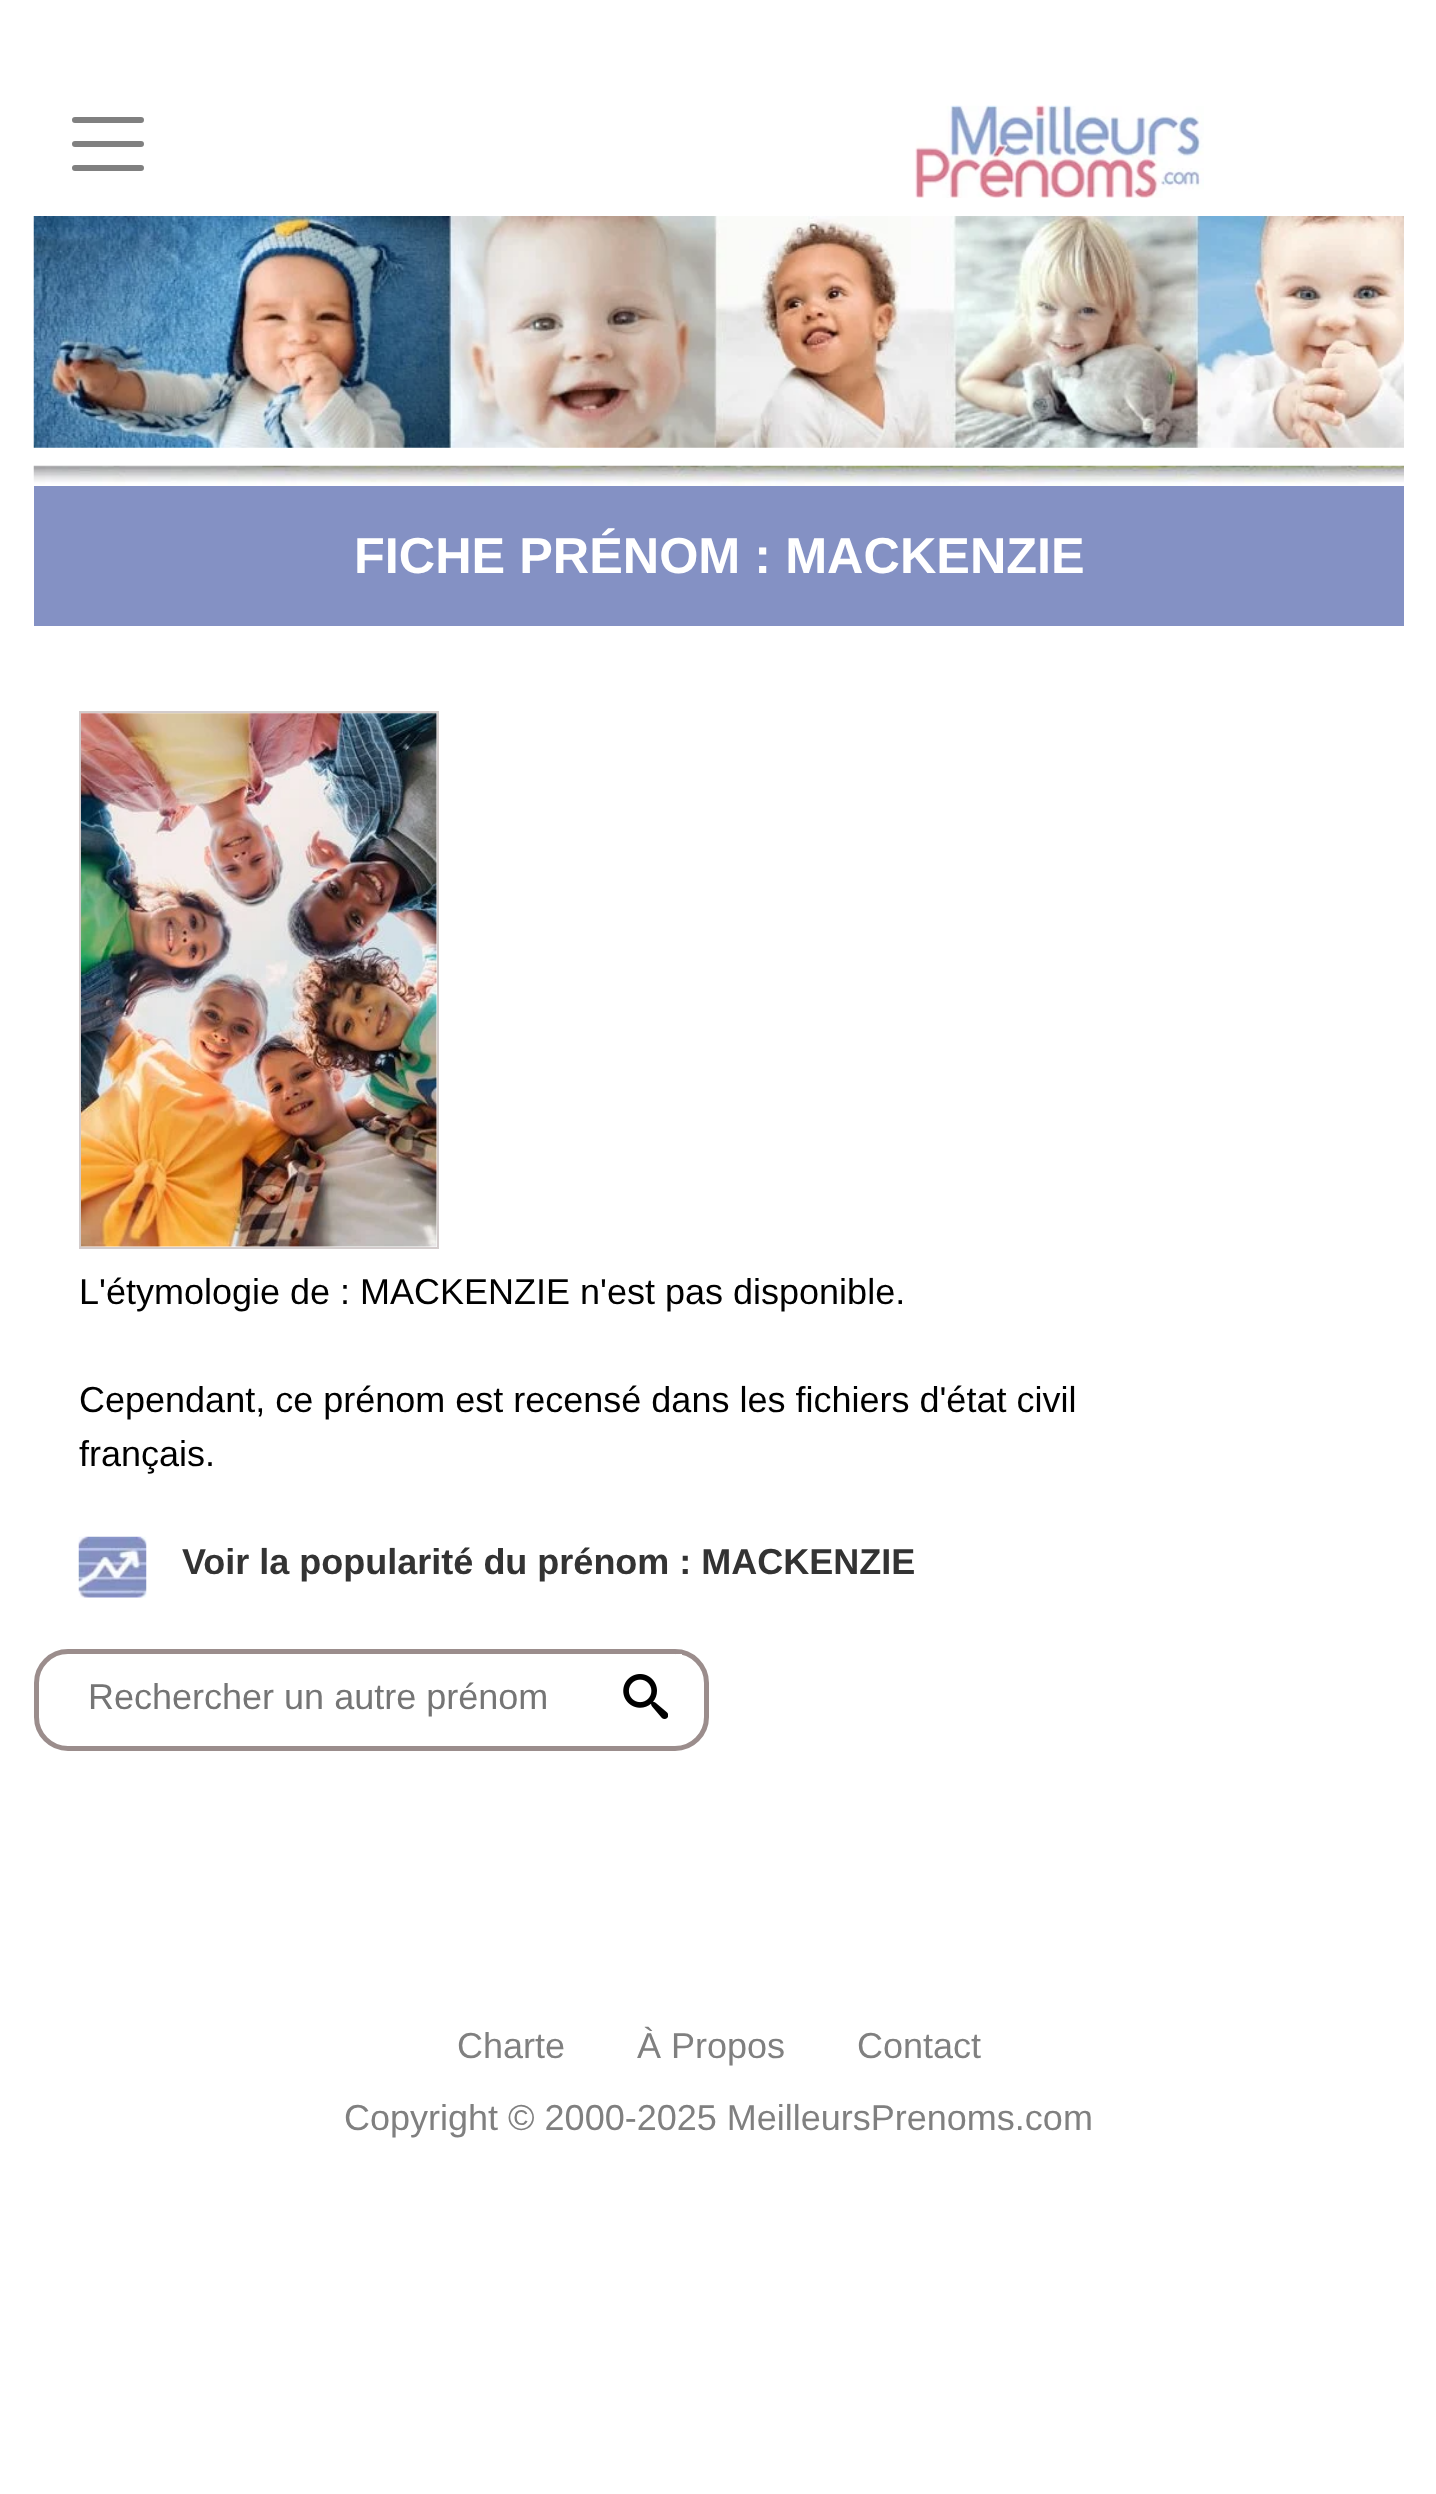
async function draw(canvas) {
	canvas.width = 1436;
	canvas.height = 2494;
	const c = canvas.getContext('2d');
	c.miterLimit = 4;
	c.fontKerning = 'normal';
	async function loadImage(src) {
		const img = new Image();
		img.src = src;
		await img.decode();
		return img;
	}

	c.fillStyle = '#fff';
	c.fillRect(0, 0, 1436, 2494);
	c.beginPath();
	c.moveTo(75, 120);
	c.lineTo(141, 120);
	c.moveTo(75, 144);
	c.lineTo(141, 144);
	c.moveTo(75, 168);
	c.lineTo(141, 168);
	c.strokeStyle = '#808080';
	c.lineWidth = 6;
	c.lineCap = 'round';
	c.stroke();
	c.drawImage(await loadImage('img1.png'), 915, 105, 289, 93);
	c.drawImage(await loadImage('img2.png'), 33, 216, 1371, 232);
	c.drawImage(await loadImage('img3.png'), 33, 465, 1371, 21);
	c.fillStyle = '#8491c4';
	c.fillRect(34, 486, 1370, 140);
	c.font = 'bold 50.4px Liberation Sans';
	c.fillStyle = '#fff';
	c.fillText('FICHE PRÉNOM : MACKENZIE', 354, 573);
	c.strokeStyle = '#d3cccc';
	c.lineWidth = 2;
	c.strokeRect(80, 712, 358, 536);
	c.drawImage(await loadImage('img4.png'), 81, 713, 356, 534);
	c.font = '36px Liberation Sans';
	c.fillStyle = '#000';
	for (const [text, x, y] of [
		['L\'étymologie de : MACKENZIE n\'est pas disponible.', 79, 1304],
		['Cependant, ce prénom est recensé dans les fichiers d\'état civil', 79, 1412],
		['français.', 79, 1466],
	]) {
		c.fillText(text, x, y);
	}
	c.drawImage(await loadImage('img5.png'), 78, 1536, 69, 62);
	c.font = 'bold 36px Liberation Sans';
	c.fillStyle = '#333';
	c.fillText('Voir la popularité du prénom : MACKENZIE', 182, 1574);
	c.beginPath();
	c.roundRect(36.5, 1651.5, 670, 97, 31.5);
	c.strokeStyle = '#9b8d8c';
	c.lineWidth = 5;
	c.stroke();
	c.fillStyle = '#fff';
	c.fillRect(676, 1654, 6, 1);
	c.font = '36px Liberation Sans';
	c.fillStyle = '#757575';
	c.fillText('Rechercher un autre prénom', 88, 1709);
	c.drawImage(await loadImage('img6.png'), 623, 1674, 45, 45);
	c.fillStyle = '#808080';
	for (const [text, x, y] of [
		['Charte', 457, 2058],
		['À Propos', 637, 2058],
		['Contact', 857, 2058],
		['Copyright © 2000-2025 MeilleursPrenoms.com', 344, 2130],
	]) {
		c.fillText(text, x, y);
	}
}

draw(document.querySelector('canvas'));
